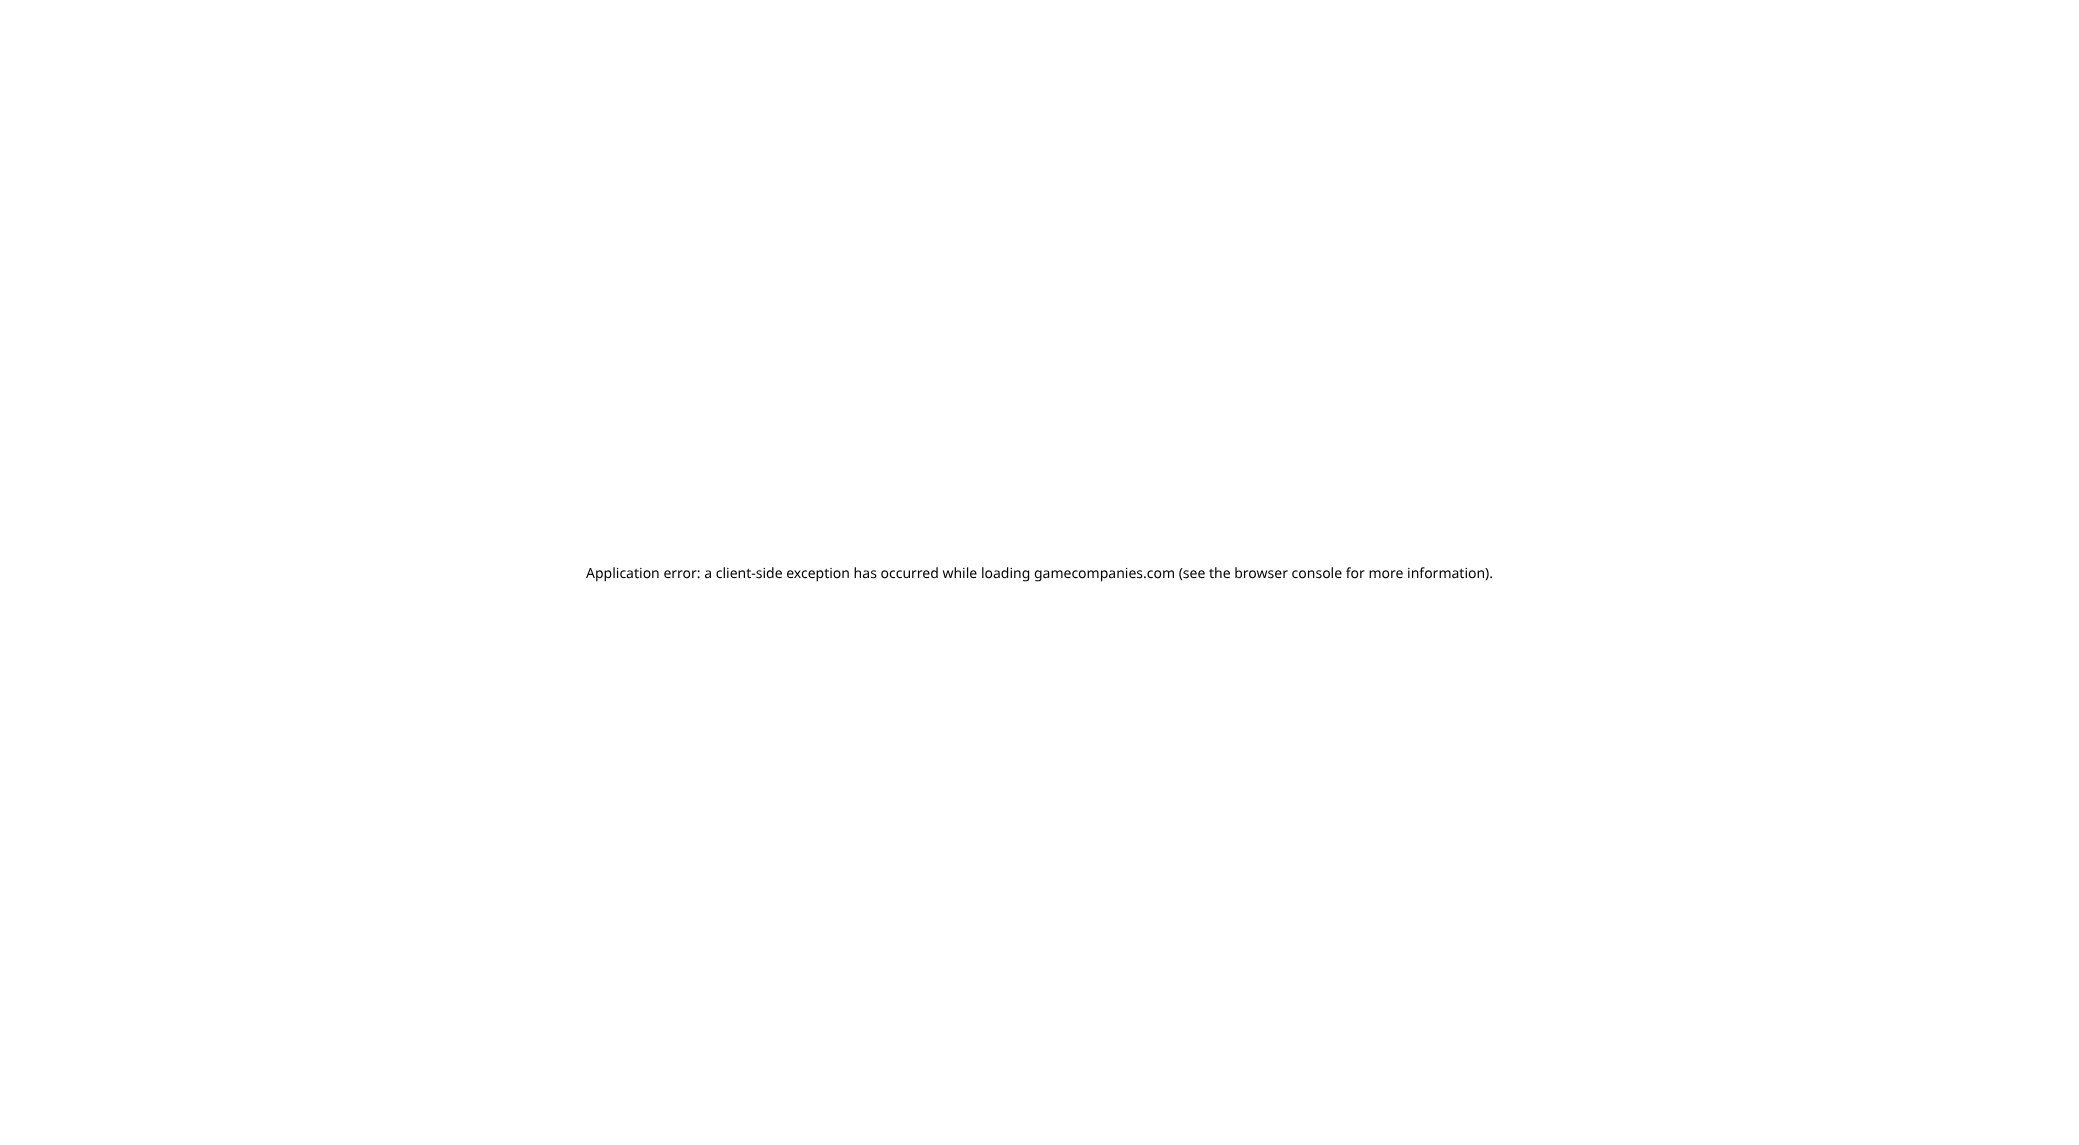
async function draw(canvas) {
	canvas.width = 2079;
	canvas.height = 1145;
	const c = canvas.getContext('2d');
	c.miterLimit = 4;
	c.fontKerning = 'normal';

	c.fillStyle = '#fff';
	c.fillRect(0, 0, 2079, 1145);
	c.font = '14px Noto Sans';
	c.fillStyle = '#000';
	c.fillText('Application error: a client-side exception has occurred while loading gamecompanies.com (see the browser console for more information).', 586, 578);
}

draw(document.querySelector('canvas'));
